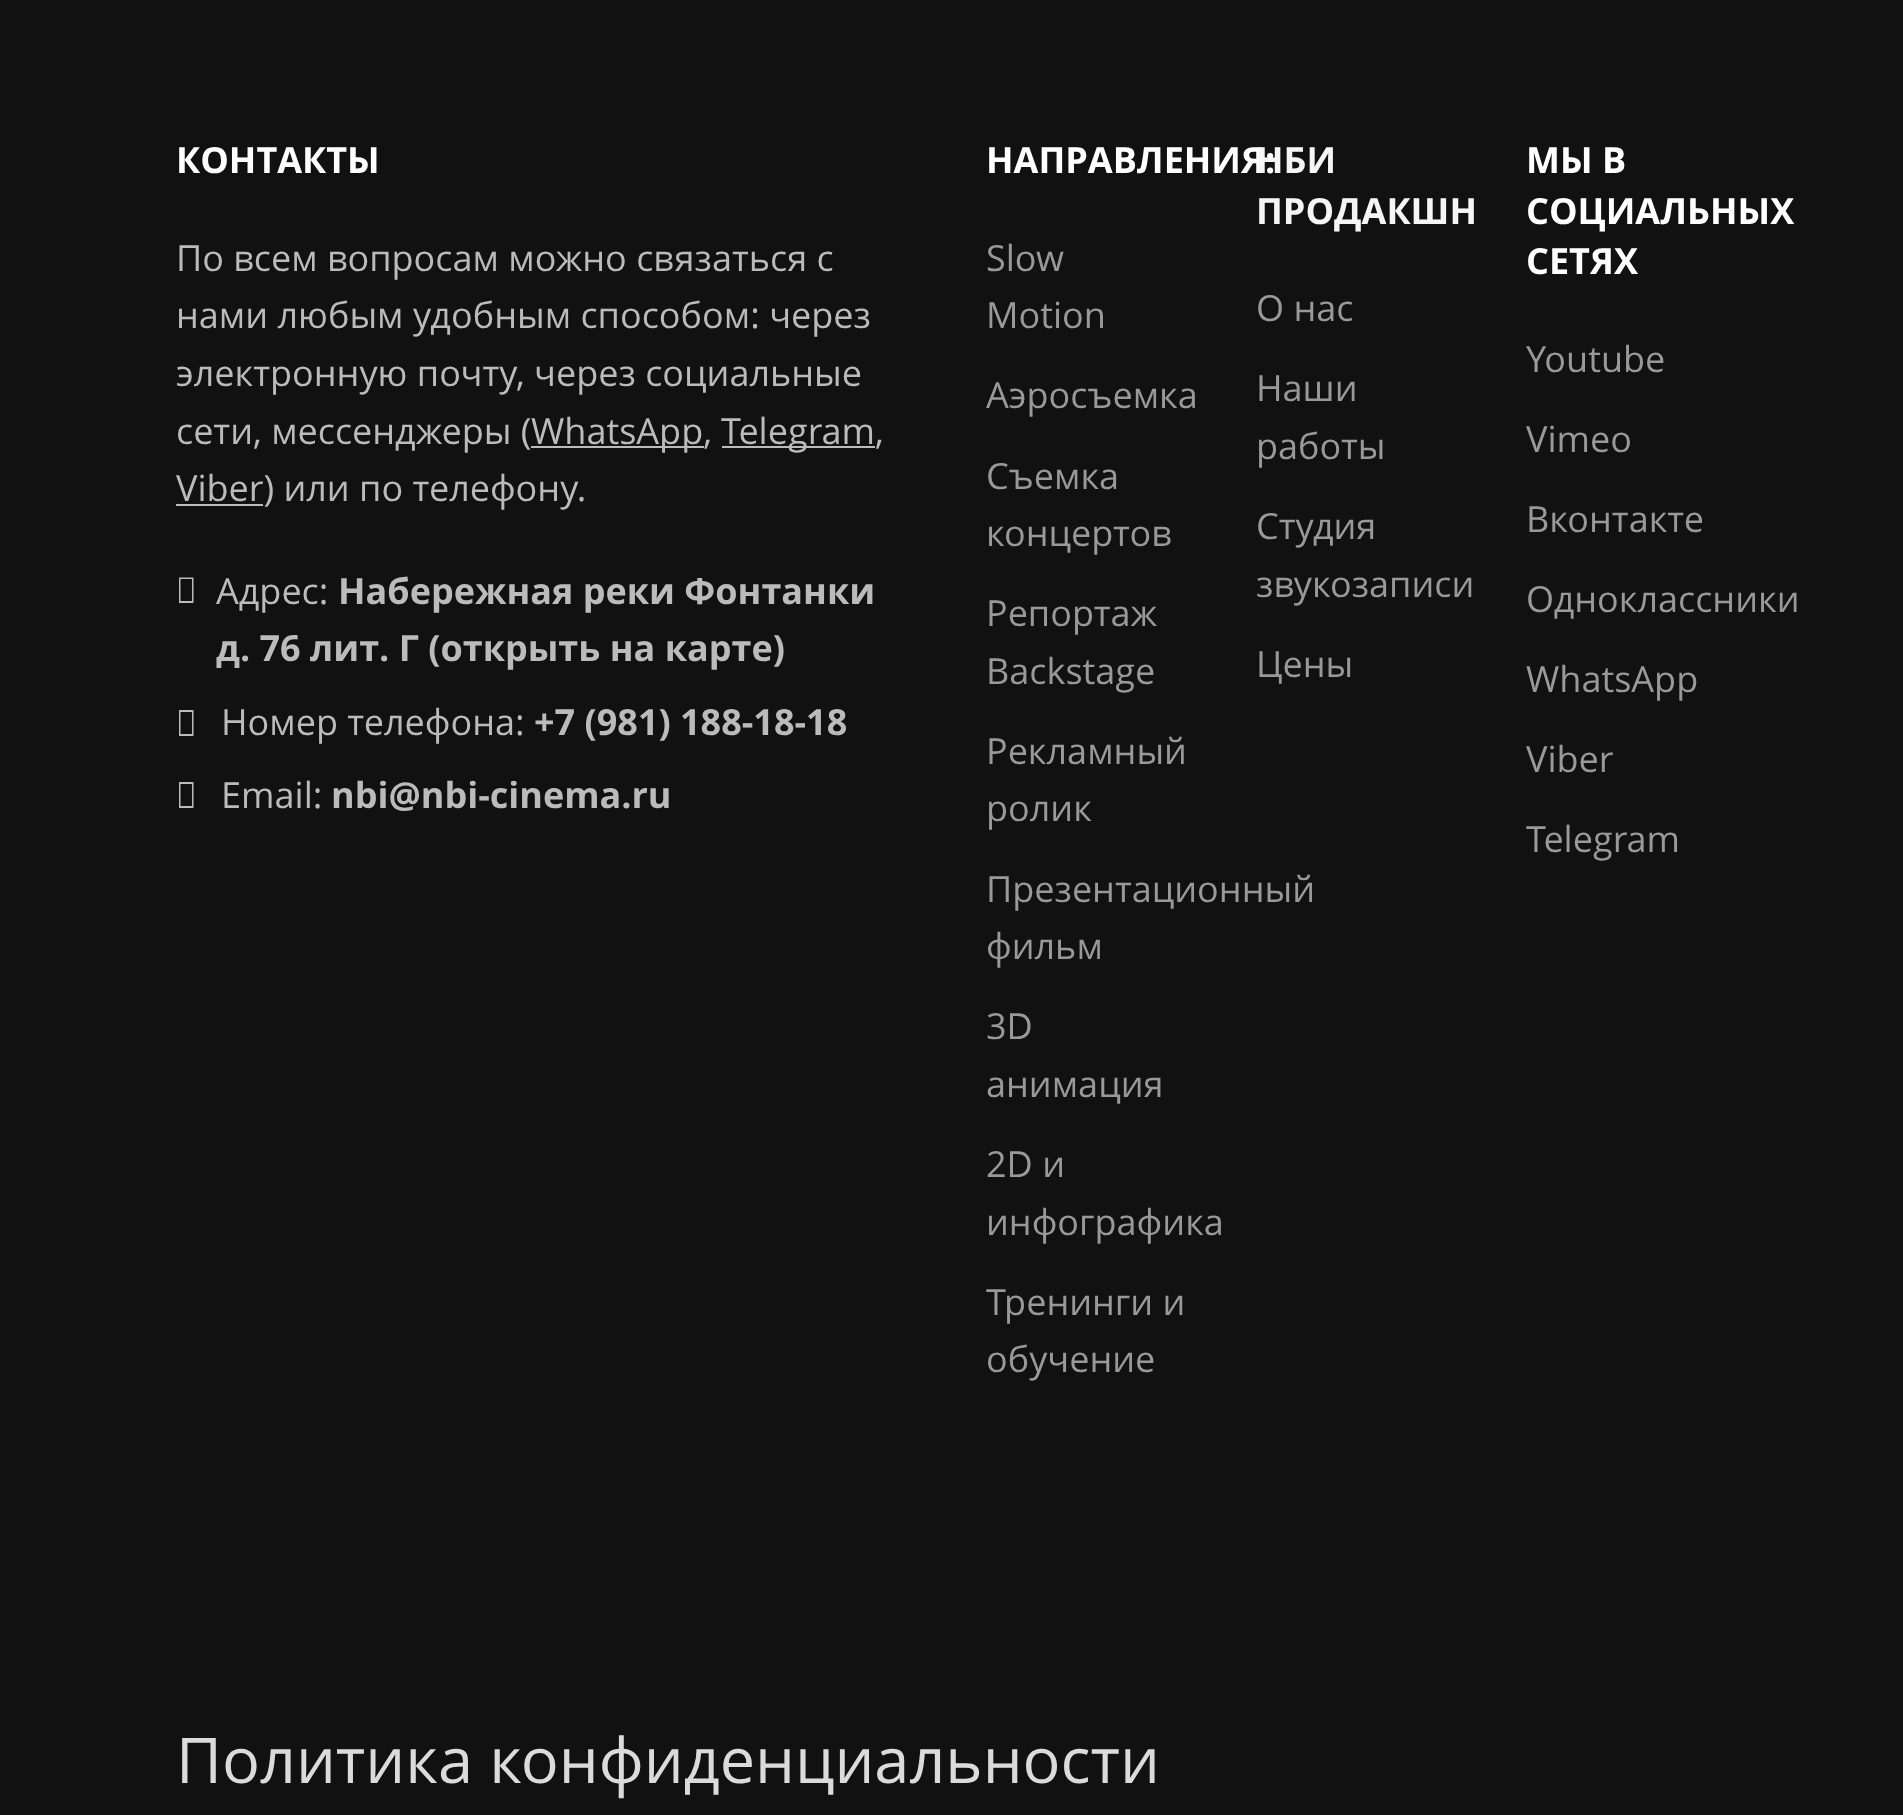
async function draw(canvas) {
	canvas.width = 1903;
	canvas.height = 1815;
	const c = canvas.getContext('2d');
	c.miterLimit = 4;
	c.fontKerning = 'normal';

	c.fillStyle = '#111';
	c.fillRect(0, 0, 1903, 1815);
	c.font = 'bold 36px Open Sans';
	c.fillStyle = '#fff';
	c.fillText('КОНТАКТЫ', 176, 173);
	c.font = '36px Open Sans';
	c.fillStyle = '#bbb';
	for (const [text, x, y] of [
		['По всем вопросам можно связаться с', 176, 271],
		['нами любым удобным способом: через', 176, 328],
		['электронную почту, через социальные', 176, 386],
		['сети, мессенджеры (', 176, 444],
	]) {
		c.fillText(text, x, y);
	}
	c.fillRect(531, 446, 173, 2);
	c.fillText('WhatsApp,', 531, 444);
	c.fillRect(722, 446, 153, 2);
	c.fillText('Telegram,', 721, 444);
	c.fillRect(176, 504, 87, 2);
	c.fillText('Viber) или по телефону.', 176, 501);
	c.beginPath();
	c.moveTo(179, 603);
	c.lineTo(179, 577.5);
	c.lineTo(193.5, 577.5);
	c.lineTo(193.5, 603);
	c.closePath();
	c.moveTo(180.5, 601);
	c.lineTo(192, 601);
	c.lineTo(192, 579);
	c.lineTo(180.5, 579);
	c.closePath();
	c.fill();
	c.fillText('Адрес:', 216, 604);
	c.font = 'bold 36px Open Sans';
	c.fillText('Набережная реки Фонтанки', 338, 604);
	c.fillText('д. 76 лит. Г (открыть на карте)', 216, 661);
	c.beginPath();
	c.moveTo(179, 736);
	c.lineTo(179, 710);
	c.lineTo(193.5, 710);
	c.lineTo(193.5, 736);
	c.closePath();
	c.moveTo(180.5, 734);
	c.lineTo(192, 734);
	c.lineTo(192, 712);
	c.lineTo(180.5, 712);
	c.closePath();
	c.fill();
	c.font = '36px Open Sans';
	c.fillText('Номер телефона:', 221, 735);
	c.font = 'bold 36px Open Sans';
	c.fillText('+7 (981) 188-18-18', 534, 735);
	c.beginPath();
	c.moveTo(179, 808);
	c.lineTo(179, 782);
	c.lineTo(193.5, 782);
	c.lineTo(193.5, 808);
	c.closePath();
	c.moveTo(180.5, 806);
	c.lineTo(192, 806);
	c.lineTo(192, 784);
	c.lineTo(180.5, 784);
	c.closePath();
	c.fill();
	c.font = '36px Open Sans';
	c.fillText('Email:', 221, 808);
	c.font = 'bold 36px Open Sans';
	c.fillText('nbi@nbi-cinema.ru', 331, 808);
	c.fillStyle = '#fff';
	c.fillText('НАПРАВЛЕНИЯ:', 986, 173);
	c.font = '36px Open Sans';
	c.fillStyle = '#999';
	for (const [text, x, y] of [
		['Slow', 986, 271],
		['Motion', 986, 328],
		['Аэросъемка', 986, 408],
		['Съемка', 986, 489],
		['концертов', 986, 546],
		['Репортаж', 986, 626],
		['Backstage', 986, 684],
		['Рекламный', 986, 764],
		['ролик', 986, 821],
		['Презентационный', 986, 902],
		['фильм', 986, 959],
		['3D', 986, 1039],
		['анимация', 986, 1097],
		['2D и', 986, 1177],
		['инфографика', 986, 1235],
		['Тренинги и', 986, 1315],
		['обучение', 986, 1372],
	]) {
		c.fillText(text, x, y);
	}
	c.font = 'bold 36px Open Sans';
	c.fillStyle = '#f5f5f5';
	c.fillText('НБИ', 1256, 173);
	c.fillText('ПРОДАКШН', 1256, 224);
	c.font = '36px Open Sans';
	c.fillStyle = '#999';
	for (const [text, x, y] of [
		['О нас', 1256, 321],
		['Наши', 1256, 401],
		['работы', 1256, 459],
		['Студия', 1256, 539],
		['звукозаписи', 1256, 597],
		['Цены', 1256, 677],
	]) {
		c.fillText(text, x, y);
	}
	c.font = 'bold 36px Open Sans';
	c.fillStyle = '#fff';
	for (const [text, x, y] of [
		['МЫ В', 1526, 173],
		['СОЦИАЛЬНЫХ', 1526, 224],
		['СЕТЯХ', 1526, 274],
	]) {
		c.fillText(text, x, y);
	}
	c.font = '36px Open Sans';
	c.fillStyle = '#999';
	for (const [text, x, y] of [
		['Youtube', 1526, 372],
		['Vimeo', 1526, 452],
		['Вконтакте', 1526, 532],
		['Одноклассники', 1526, 612],
		['WhatsApp', 1526, 692],
		['Viber', 1526, 772],
		['Telegram', 1526, 852],
	]) {
		c.fillText(text, x, y);
	}
	c.font = '63px Open Sans';
	c.fillStyle = '#dbdbdb';
	c.fillText('Политика конфиденциальности', 176, 1783);
}

draw(document.querySelector('canvas'));
